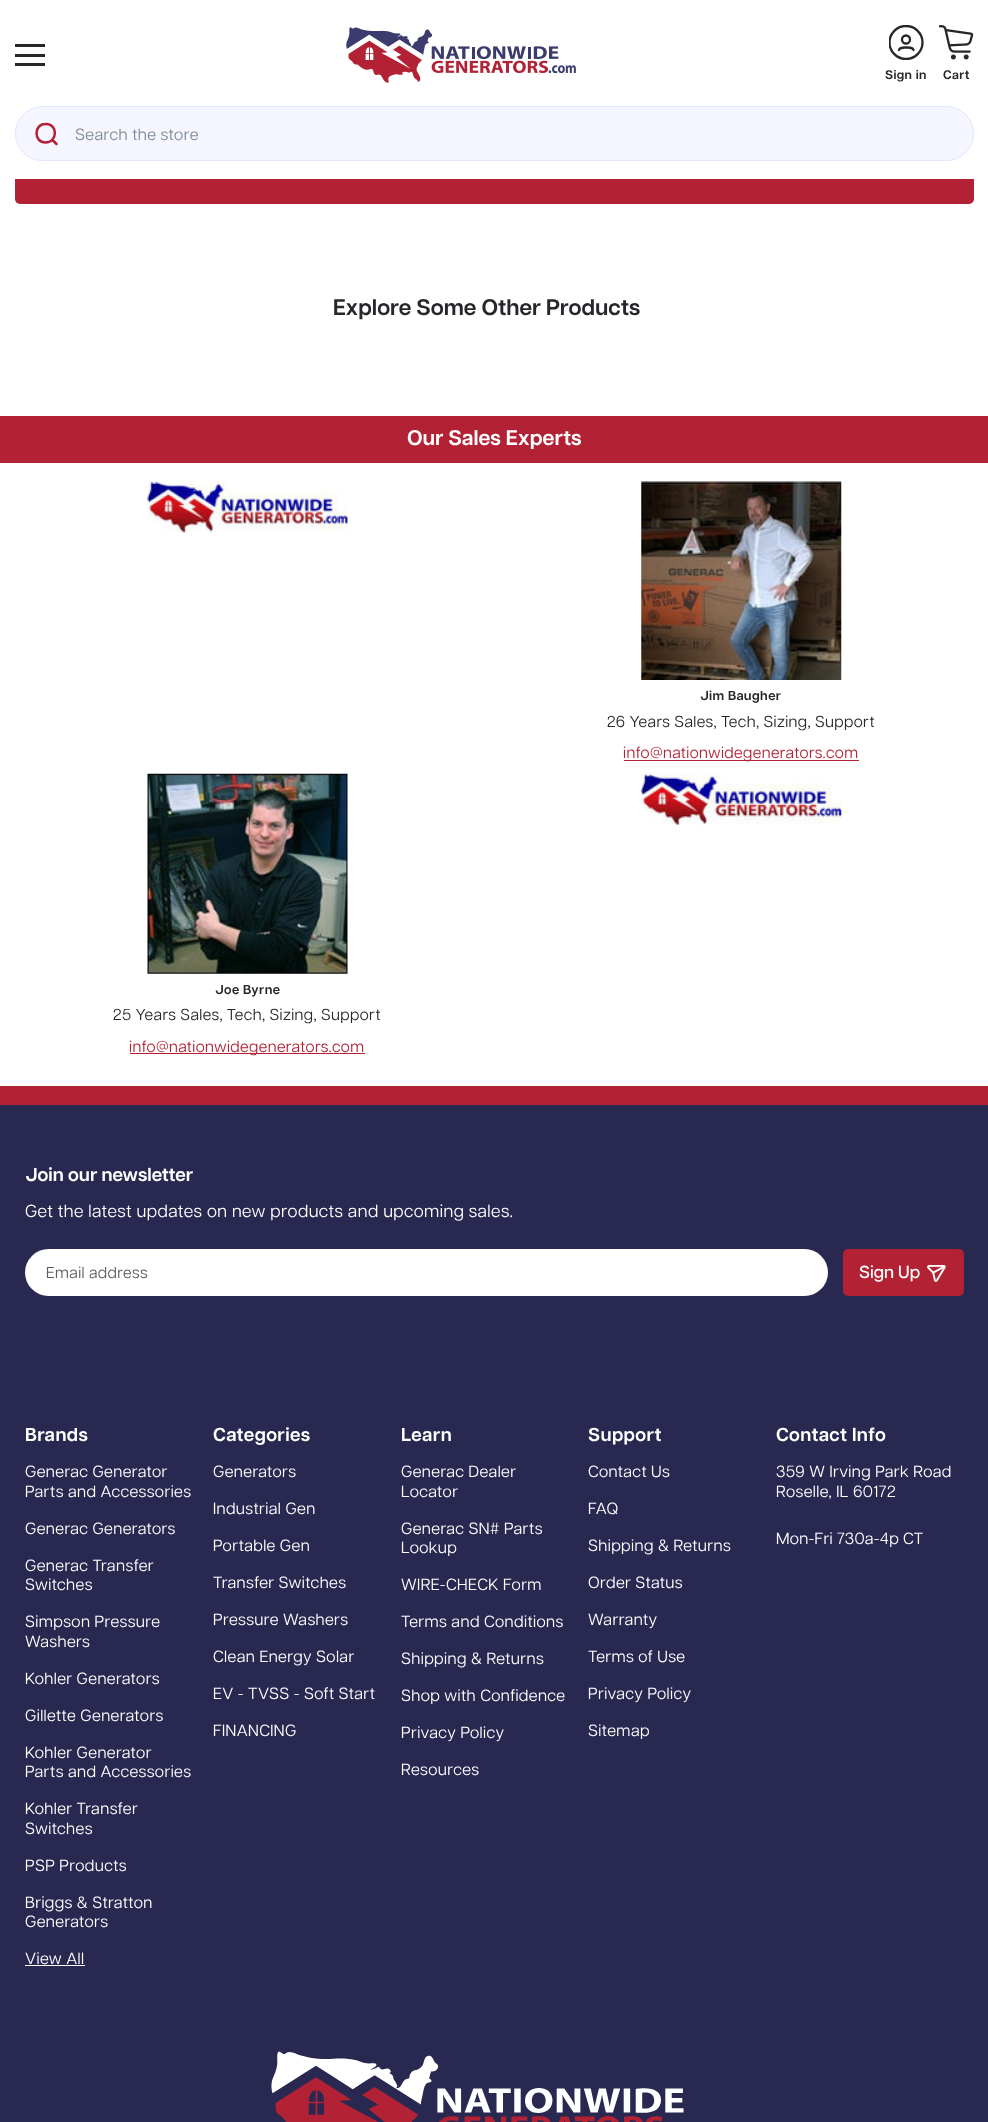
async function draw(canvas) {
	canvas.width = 988;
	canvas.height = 2122;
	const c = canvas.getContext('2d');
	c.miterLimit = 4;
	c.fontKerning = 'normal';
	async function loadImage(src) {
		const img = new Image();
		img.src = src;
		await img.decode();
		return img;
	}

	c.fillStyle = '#fff';
	c.fillRect(0, 0, 988, 2122);
	c.fillStyle = '#b22234';
	c.beginPath();
	c.roundRect(15, 141, 959, 63, 5);
	c.fill();
	for (const [x, y, w, h, color] of [
		[15, 141, 959, 38, '#fff'],
		[15, 54, 30, 3, '#25272b'],
		[15, 44, 30, 3, '#25272b'],
		[15, 63, 30, 3, '#25272b'],
	]) {
		c.fillStyle = color;
		c.fillRect(x, y, w, h);
	}
	c.drawImage(await loadImage('img1.png'), 346, 27, 230, 56);
	c.save();
	c.beginPath();
	c.rect(889, 25, 35, 35);
	c.clip();
	c.beginPath();
	c.arc(906, 42.5, 16.5, 0, 2 * Math.PI);
	c.strokeStyle = '#25272b';
	c.lineWidth = 2.3;
	c.stroke();
	c.restore();
	c.beginPath();
	c.moveTo(913.5, 50);
	c.bezierCurveTo(912.5, 47, 909, 47.5, 906.5, 47.5);
	c.bezierCurveTo(903.5, 47.5, 900, 47, 899, 50);
	c.strokeStyle = '#25272b';
	c.lineWidth = 2.3;
	c.lineCap = 'round';
	c.lineJoin = 'round';
	c.stroke();
	c.beginPath();
	c.arc(906, 39.5, 4, 0, 2 * Math.PI);
	c.stroke();
	c.letterSpacing = '0.4px';
	c.font = '600 12.5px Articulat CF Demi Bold';
	c.fillText('Sign in', 885, 79);
	c.drawImage(await loadImage('img2.png'), 939, 25, 35, 35);
	c.fillText('Cart', 943, 79);
	c.fillStyle = '#f5f6ff';
	c.beginPath();
	c.roundRect(15.5, 106.5, 958, 54, 27);
	c.fill();
	c.strokeStyle = '#e2e5ff';
	c.lineWidth = 1;
	c.lineJoin = 'miter';
	c.stroke();
	c.beginPath();
	c.moveTo(45.5, 142.5);
	c.bezierCurveTo(58, 142.5, 58, 123.5, 45.5, 124);
	c.bezierCurveTo(33.5, 124, 33.5, 142.5, 45.5, 142.5);
	c.closePath();
	c.moveTo(52.5, 140);
	c.lineTo(56.5, 144);
	c.strokeStyle = '#b22234';
	c.lineWidth = 2.5;
	c.lineJoin = 'round';
	c.stroke();
	c.font = '16.25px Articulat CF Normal';
	c.fillStyle = '#7b8d8e';
	c.fillText('Search the store', 75, 140);
	c.letterSpacing = '0px';
	c.font = '600 22.5px Articulat CF Demi Bold';
	c.fillStyle = '#25272b';
	c.fillText('Explore Some Other Products', 333, 315);
	c.fillStyle = '#b22234';
	c.fillRect(0, 416, 988, 47);
	c.font = '600 21.25px Articulat CF Demi Bold';
	c.fillStyle = '#fff';
	c.fillText('Our Sales Experts', 407, 445);
	c.drawImage(await loadImage('img3.png'), 147, 481, 201, 52);
	c.drawImage(await loadImage('img4.png'), 641, 481, 201, 199);
	c.letterSpacing = '0.4px';
	c.font = '600 13px Articulat CF Demi Bold';
	c.fillStyle = '#25272b';
	c.fillText('Jim Baugher', 700, 700);
	c.font = '15.9px Articulat CF Normal';
	c.fillText('26 Years Sales, Tech, Sizing, Support', 607, 727);
	c.fillStyle = '#b22234';
	c.fillRect(624, 760, 235, 1);
	c.fillText('info@nationwidegenerators.com', 623, 758);
	c.drawImage(await loadImage('img5.png'), 641, 773, 201, 52);
	c.drawImage(await loadImage('img6.png'), 147, 773, 201, 201);
	c.font = '600 13px Articulat CF Demi Bold';
	c.fillStyle = '#25272b';
	c.fillText('Joe Byrne', 215, 994);
	c.font = '15.9px Articulat CF Normal';
	c.fillText('25 Years Sales, Tech, Sizing, Support', 113, 1020);
	c.fillStyle = '#b22234';
	c.fillRect(130, 1053, 235, 1);
	c.fillText('info@nationwidegenerators.com', 129, 1052);
	c.fillRect(0, 1086, 988, 19);
	c.fillStyle = '#292851';
	c.fillRect(0, 1105, 988, 1017);
	c.letterSpacing = '0px';
	c.font = '600 18.75px Articulat CF Demi Bold';
	c.fillStyle = '#fff';
	c.fillText('Join our newsletter', 25, 1181);
	c.letterSpacing = '0.45px';
	c.font = '17.5px Articulat CF Normal';
	c.fillText('Get the latest updates on new products and upcoming sales.', 25, 1217);
	c.beginPath();
	c.roundRect(25, 1249, 803, 47, 23.5);
	c.fill();
	c.letterSpacing = '0.4px';
	c.font = '15.9px Articulat CF Normal';
	c.fillStyle = '#5c5d60';
	c.fillText('Email address', 46, 1278);
	c.fillStyle = '#b22234';
	c.beginPath();
	c.roundRect(843, 1249, 121, 47, 5);
	c.fill();
	c.letterSpacing = '0px';
	c.font = '500 17.5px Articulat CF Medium';
	c.fillStyle = '#fff';
	c.fillText('Sign Up', 859, 1278);
	c.drawImage(await loadImage('img7.png'), 927, 1265, 19, 17);
	c.letterSpacing = '0.4px';
	c.font = '600 18.75px Articulat CF Demi Bold';
	c.fillText('Brands', 25, 1441);
	c.font = '16.25px Articulat CF Normal';
	for (const [text, x, y] of [
		['Generac Generator', 25, 1477],
		['Parts and Accessories', 25, 1497],
		['Generac Generators', 25, 1534],
		['Generac Transfer', 25, 1571],
		['Switches', 25, 1590],
		['Simpson Pressure', 25, 1627],
		['Washers', 25, 1647],
		['Kohler Generators', 25, 1684],
		['Gillette Generators', 25, 1721],
		['Kohler Generator', 25, 1758],
		['Parts and Accessories', 25, 1777],
		['Kohler Transfer', 25, 1814],
		['Switches', 25, 1834],
		['PSP Products', 25, 1871],
		['Briggs & Stratton', 25, 1908],
		['Generators', 25, 1927],
		['View All', 25, 1964],
	]) {
		c.fillText(text, x, y);
	}
	c.fillRect(25, 1965, 60, 1);
	c.font = '600 18.75px Articulat CF Demi Bold';
	c.fillText('Categories', 213, 1441);
	c.font = '16.25px Articulat CF Normal';
	for (const [text, x, y] of [
		['Generators', 213, 1477],
		['Industrial Gen', 213, 1514],
		['Portable Gen', 213, 1551],
		['Transfer Switches', 213, 1588],
		['Pressure Washers', 213, 1625],
		['Clean Energy Solar', 213, 1662],
		['EV - TVSS - Soft Start', 213, 1699],
		['FINANCING', 213, 1736],
	]) {
		c.fillText(text, x, y);
	}
	c.font = '600 18.75px Articulat CF Demi Bold';
	c.fillText('Learn', 401, 1441);
	c.font = '16.25px Articulat CF Normal';
	for (const [text, x, y] of [
		['Generac Dealer', 401, 1477],
		['Locator', 401, 1497],
		['Generac SN# Parts', 401, 1534],
		['Lookup', 401, 1553],
		['WIRE-CHECK Form', 401, 1590],
		['Terms and Conditions', 401, 1627],
		['Shipping & Returns', 401, 1664],
		['Shop with Confidence', 401, 1701],
		['Privacy Policy', 401, 1738],
		['Resources', 401, 1775],
	]) {
		c.fillText(text, x, y);
	}
	c.font = '600 18.75px Articulat CF Demi Bold';
	c.fillText('Support', 588, 1441);
	c.font = '16.25px Articulat CF Normal';
	for (const [text, x, y] of [
		['Contact Us', 588, 1477],
		['FAQ', 588, 1514],
		['Shipping & Returns', 588, 1551],
		['Order Status', 588, 1588],
		['Warranty', 588, 1625],
		['Terms of Use', 588, 1662],
		['Privacy Policy', 588, 1699],
		['Sitemap', 588, 1736],
	]) {
		c.fillText(text, x, y);
	}
	c.font = '600 18.75px Articulat CF Demi Bold';
	c.fillText('Contact Info', 776, 1441);
	c.font = '16.25px Articulat CF Normal';
	c.fillText('359 W Irving Park Road', 776, 1477);
	c.fillText('Roselle, IL 60172', 776, 1497);
	c.letterSpacing = '0.3px';
	c.fillText('Mon-Fri 730a-4p CT', 776, 1544);
	c.drawImage(await loadImage('img8.png'), 271, 2051, 413, 71);
}

draw(document.querySelector('canvas'));
